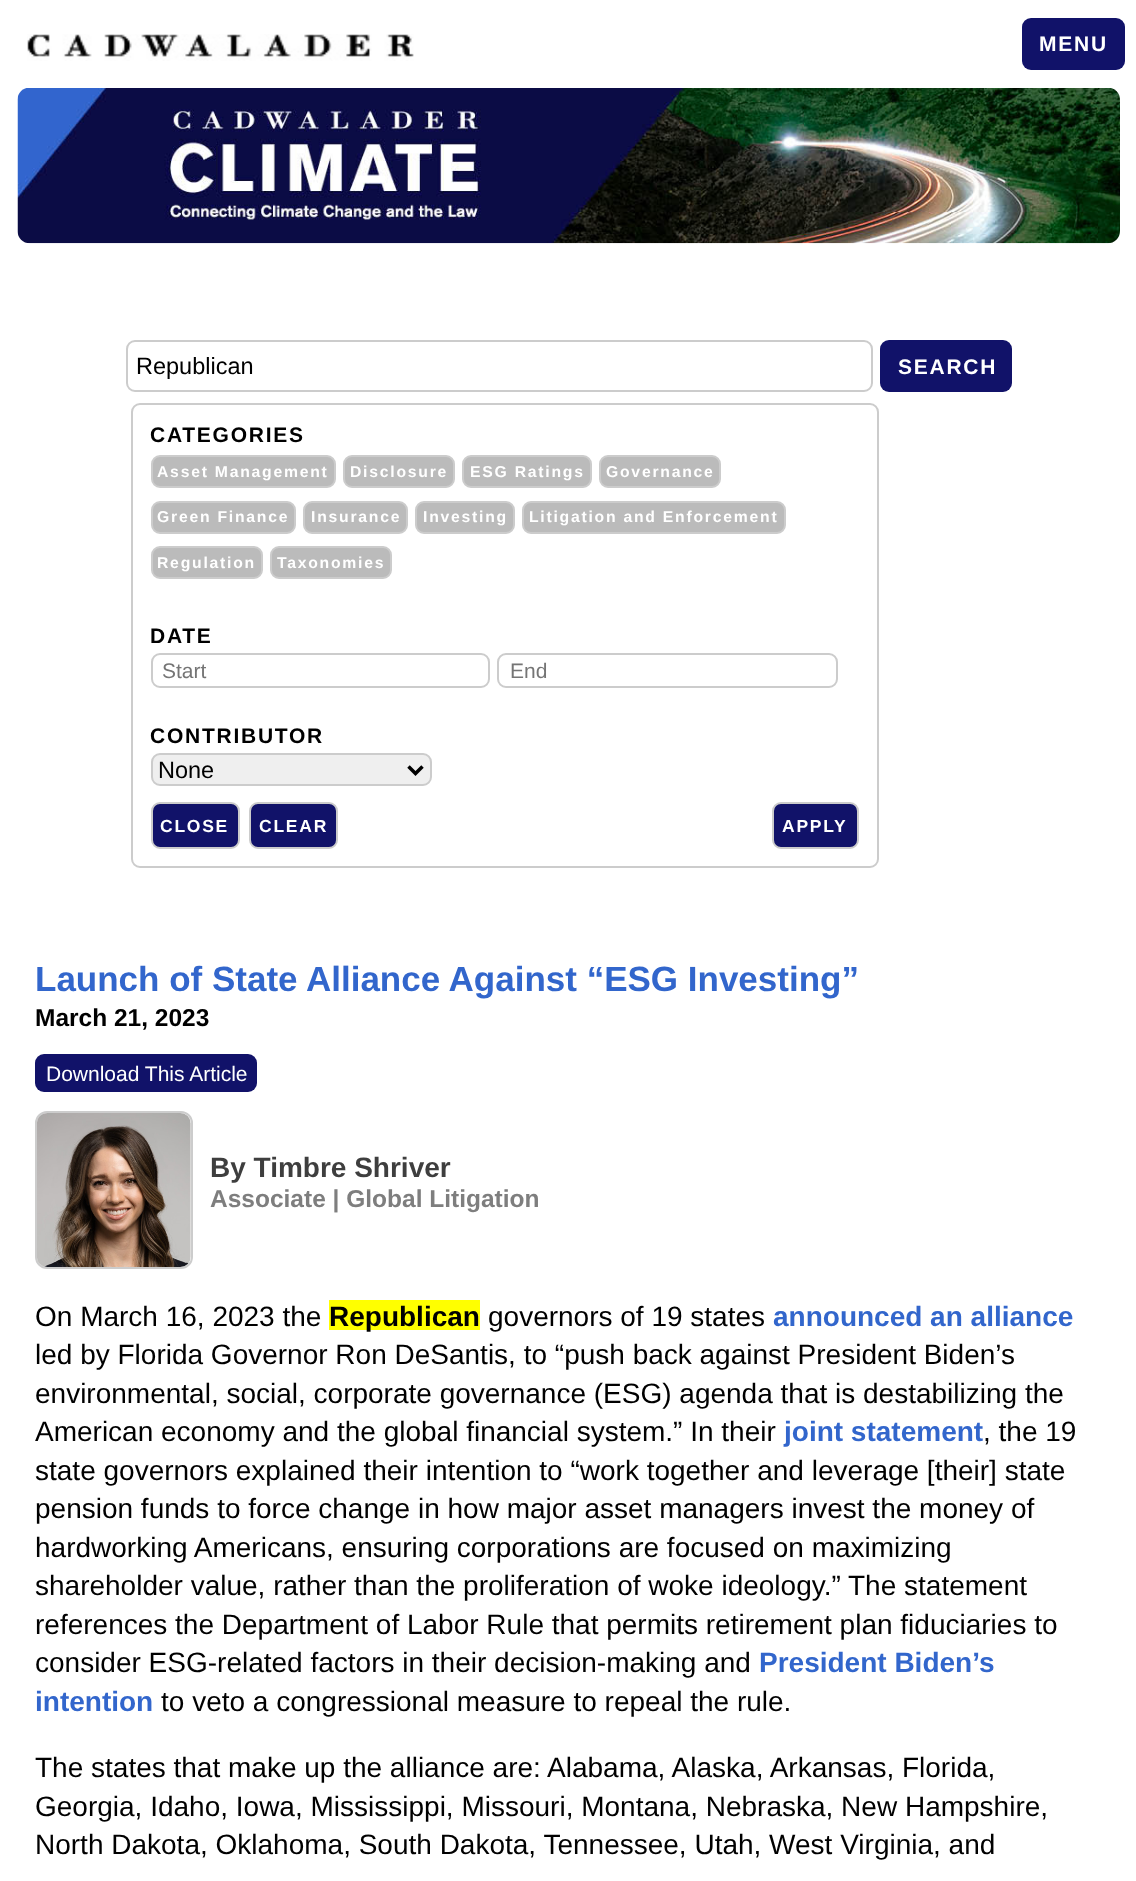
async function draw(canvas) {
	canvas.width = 1136;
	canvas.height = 1881;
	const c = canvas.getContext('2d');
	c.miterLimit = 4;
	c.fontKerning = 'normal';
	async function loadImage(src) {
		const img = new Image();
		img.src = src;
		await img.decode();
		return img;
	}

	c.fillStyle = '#fff';
	c.fillRect(0, 0, 1136, 1881);
	c.drawImage(await loadImage('img1.png'), 27, 34, 387, 27);
	c.fillStyle = '#111269';
	c.beginPath();
	c.roundRect(1022, 18, 103, 52, 9);
	c.fill();
	c.letterSpacing = '1.75px';
	c.font = 'bold 21px Liberation Sans';
	c.fillStyle = '#fff';
	c.fillText('MENU', 1039, 51);
	c.drawImage(await loadImage('img2.png'), 17, 88, 1103, 156);
	c.beginPath();
	c.roundRect(127, 341, 745, 50, 8);
	c.strokeStyle = '#ccc';
	c.lineWidth = 2;
	c.stroke();
	c.letterSpacing = '0px';
	c.font = '23.5px Liberation Sans';
	c.fillStyle = '#000';
	c.fillText('Republican', 136, 374);
	c.fillStyle = '#111269';
	c.beginPath();
	c.roundRect(880, 340, 132, 52, 9);
	c.fill();
	c.letterSpacing = '1.75px';
	c.font = 'bold 21px Liberation Sans';
	c.fillStyle = '#fff';
	c.fillText('SEARCH', 898, 374);
	c.beginPath();
	c.roundRect(132, 404, 746, 463, 8);
	c.stroke();
	c.fillStyle = '#000';
	c.fillText('CATEGORIES', 150, 442);
	c.fillStyle = '#bbb';
	c.beginPath();
	c.roundRect(152, 456, 183, 31, 8);
	c.fill();
	c.stroke();
	c.font = 'bold 15.75px Liberation Sans';
	c.fillStyle = '#fff';
	c.fillText('Asset Management', 157, 477);
	c.fillStyle = '#bbb';
	c.beginPath();
	c.roundRect(344, 456, 110, 31, 8);
	c.fill();
	c.stroke();
	c.fillStyle = '#fff';
	c.fillText('Disclosure', 350, 477);
	c.fillStyle = '#bbb';
	c.beginPath();
	c.roundRect(463, 456, 128, 31, 8);
	c.fill();
	c.stroke();
	c.fillStyle = '#fff';
	c.fillText('ESG Ratings', 470, 477);
	c.fillStyle = '#bbb';
	c.beginPath();
	c.roundRect(600, 456, 120, 31, 8);
	c.fill();
	c.stroke();
	c.fillStyle = '#fff';
	c.fillText('Governance', 606, 477);
	c.fillStyle = '#bbb';
	c.beginPath();
	c.roundRect(152, 502, 143, 31, 8);
	c.fill();
	c.stroke();
	c.fillStyle = '#fff';
	c.fillText('Green Finance', 157, 522);
	c.fillStyle = '#bbb';
	c.beginPath();
	c.roundRect(304, 502, 103, 31, 8);
	c.fill();
	c.stroke();
	c.fillStyle = '#fff';
	c.fillText('Insurance', 311, 522);
	c.fillStyle = '#bbb';
	c.beginPath();
	c.roundRect(416, 502, 98, 31, 8);
	c.fill();
	c.stroke();
	c.fillStyle = '#fff';
	c.fillText('Investing', 423, 522);
	c.fillStyle = '#bbb';
	c.beginPath();
	c.roundRect(523, 502, 262, 31, 8);
	c.fill();
	c.stroke();
	c.fillStyle = '#fff';
	c.fillText('Litigation and Enforcement', 529, 522);
	c.fillStyle = '#bbb';
	c.beginPath();
	c.roundRect(152, 547, 110, 31, 8);
	c.fill();
	c.stroke();
	c.fillStyle = '#fff';
	c.fillText('Regulation', 157, 568);
	c.fillStyle = '#bbb';
	c.beginPath();
	c.roundRect(271, 547, 120, 31, 8);
	c.fill();
	c.stroke();
	c.fillStyle = '#fff';
	c.fillText('Taxonomies', 277, 568);
	c.font = 'bold 21px Liberation Sans';
	c.fillStyle = '#000';
	c.fillText('DATE', 150, 643);
	c.beginPath();
	c.roundRect(152, 654, 337, 33, 8);
	c.stroke();
	c.letterSpacing = '0px';
	c.font = '21px Liberation Sans';
	c.fillStyle = '#757575';
	c.fillText('Start', 162, 678);
	c.beginPath();
	c.roundRect(498, 654, 339, 33, 8);
	c.stroke();
	c.fillText('End', 510, 678);
	c.letterSpacing = '1.75px';
	c.font = 'bold 21px Liberation Sans';
	c.fillStyle = '#000';
	c.fillText('CONTRIBUTOR', 150, 743);
	c.fillStyle = '#efefef';
	c.beginPath();
	c.roundRect(152, 754, 279, 31, 8);
	c.fill();
	c.stroke();
	c.beginPath();
	c.moveTo(408.5, 766.5);
	c.lineTo(415.5, 773.5);
	c.lineTo(422.5, 766.5);
	c.strokeStyle = '#000';
	c.lineWidth = 3.5;
	c.stroke();
	c.letterSpacing = '0px';
	c.font = '23.5px Liberation Sans';
	c.fillStyle = '#000';
	c.fillText('None', 158, 778);
	c.fillStyle = '#111269';
	c.beginPath();
	c.roundRect(152, 803, 87, 45, 8);
	c.fill();
	c.strokeStyle = '#ccc';
	c.lineWidth = 2;
	c.stroke();
	c.letterSpacing = '1.75px';
	c.font = 'bold 17.5px Liberation Sans';
	c.fillStyle = '#fff';
	c.fillText('CLOSE', 160, 832);
	c.fillStyle = '#111269';
	c.beginPath();
	c.roundRect(250, 803, 87, 45, 8);
	c.fill();
	c.stroke();
	c.fillStyle = '#fff';
	c.fillText('CLEAR', 259, 832);
	c.fillStyle = '#111269';
	c.beginPath();
	c.roundRect(773, 803, 85, 45, 8);
	c.fill();
	c.stroke();
	c.fillStyle = '#fff';
	c.fillText('APPLY', 782, 832);
	c.letterSpacing = '0px';
	c.font = 'bold 35px Liberation Sans';
	c.fillStyle = '#3266cc';
	c.fillText('Launch of State Alliance Against “ESG Investing”', 35, 991);
	c.font = 'bold 24.5px Liberation Sans';
	c.fillStyle = '#000';
	c.fillText('March 21, 2023', 35, 1026);
	c.fillStyle = '#111269';
	c.beginPath();
	c.roundRect(35, 1054, 222, 38, 9);
	c.fill();
	c.font = '21px Liberation Sans';
	c.fillStyle = '#fff';
	c.fillText('Download This Article', 46, 1081);
	c.beginPath();
	c.roundRect(36, 1112, 156, 156, 11);
	c.stroke();
	c.drawImage(await loadImage('img3.png'), 37, 1113, 154, 154);
	c.font = 'bold 28px Liberation Sans';
	c.fillStyle = '#3e3e3e';
	c.fillText('By Timbre Shriver', 210, 1177);
	c.font = 'bold 24.5px Liberation Sans';
	c.fillStyle = '#7e7e7e';
	c.fillText('Associate | Global Litigation', 210, 1207);
	c.font = '28px Liberation Sans';
	c.fillStyle = '#000';
	c.fillText('On March 16, 2023 the', 35, 1326);
	c.fillStyle = '#ff0';
	c.fillRect(329, 1300, 151, 30);
	c.font = 'bold 28px Liberation Sans';
	c.fillStyle = '#000';
	c.fillText('Republican', 329, 1326);
	c.font = '28px Liberation Sans';
	c.fillText('governors of 19 states', 488, 1326);
	c.font = 'bold 28px Liberation Sans';
	c.fillStyle = '#3266cc';
	c.fillText('announced an alliance', 773, 1326);
	c.font = '28px Liberation Sans';
	c.fillStyle = '#000';
	for (const [text, x, y] of [
		['led by Florida Governor Ron DeSantis, to “push back against President Biden’s', 35, 1364],
		['environmental, social, corporate governance (ESG) agenda that is destabilizing the', 35, 1403],
		['American economy and the global financial system.” In their', 35, 1441],
	]) {
		c.fillText(text, x, y);
	}
	c.font = 'bold 28px Liberation Sans';
	c.fillStyle = '#3266cc';
	c.fillText('joint statement', 784, 1441);
	c.font = '28px Liberation Sans';
	c.fillStyle = '#000';
	for (const [text, x, y] of [
		[', the 19', 983, 1441],
		['state governors explained their intention to “work together and leverage [their] state', 35, 1480],
		['pension funds to force change in how major asset managers invest the money of', 35, 1518],
		['hardworking Americans, ensuring corporations are focused on maximizing', 35, 1557],
		['shareholder value, rather than the proliferation of woke ideology.” The statement', 35, 1595],
		['references the Department of Labor Rule that permits retirement plan fiduciaries to', 35, 1634],
		['consider ESG-related factors in their decision-making and', 35, 1672],
	]) {
		c.fillText(text, x, y);
	}
	c.font = 'bold 28px Liberation Sans';
	c.fillStyle = '#3266cc';
	c.fillText('President Biden’s', 759, 1672);
	c.fillText('intention', 35, 1711);
	c.font = '28px Liberation Sans';
	c.fillStyle = '#000';
	for (const [text, x, y] of [
		['to veto a congressional measure to repeal the rule.', 161, 1711],
		['The states that make up the alliance are: Alabama, Alaska, Arkansas, Florida,', 35, 1777],
		['Georgia, Idaho, Iowa, Mississippi, Missouri, Montana, Nebraska, New Hampshire,', 35, 1816],
		['North Dakota, Oklahoma, South Dakota, Tennessee, Utah, West Virginia, and', 35, 1854],
	]) {
		c.fillText(text, x, y);
	}
}

draw(document.querySelector('canvas'));
